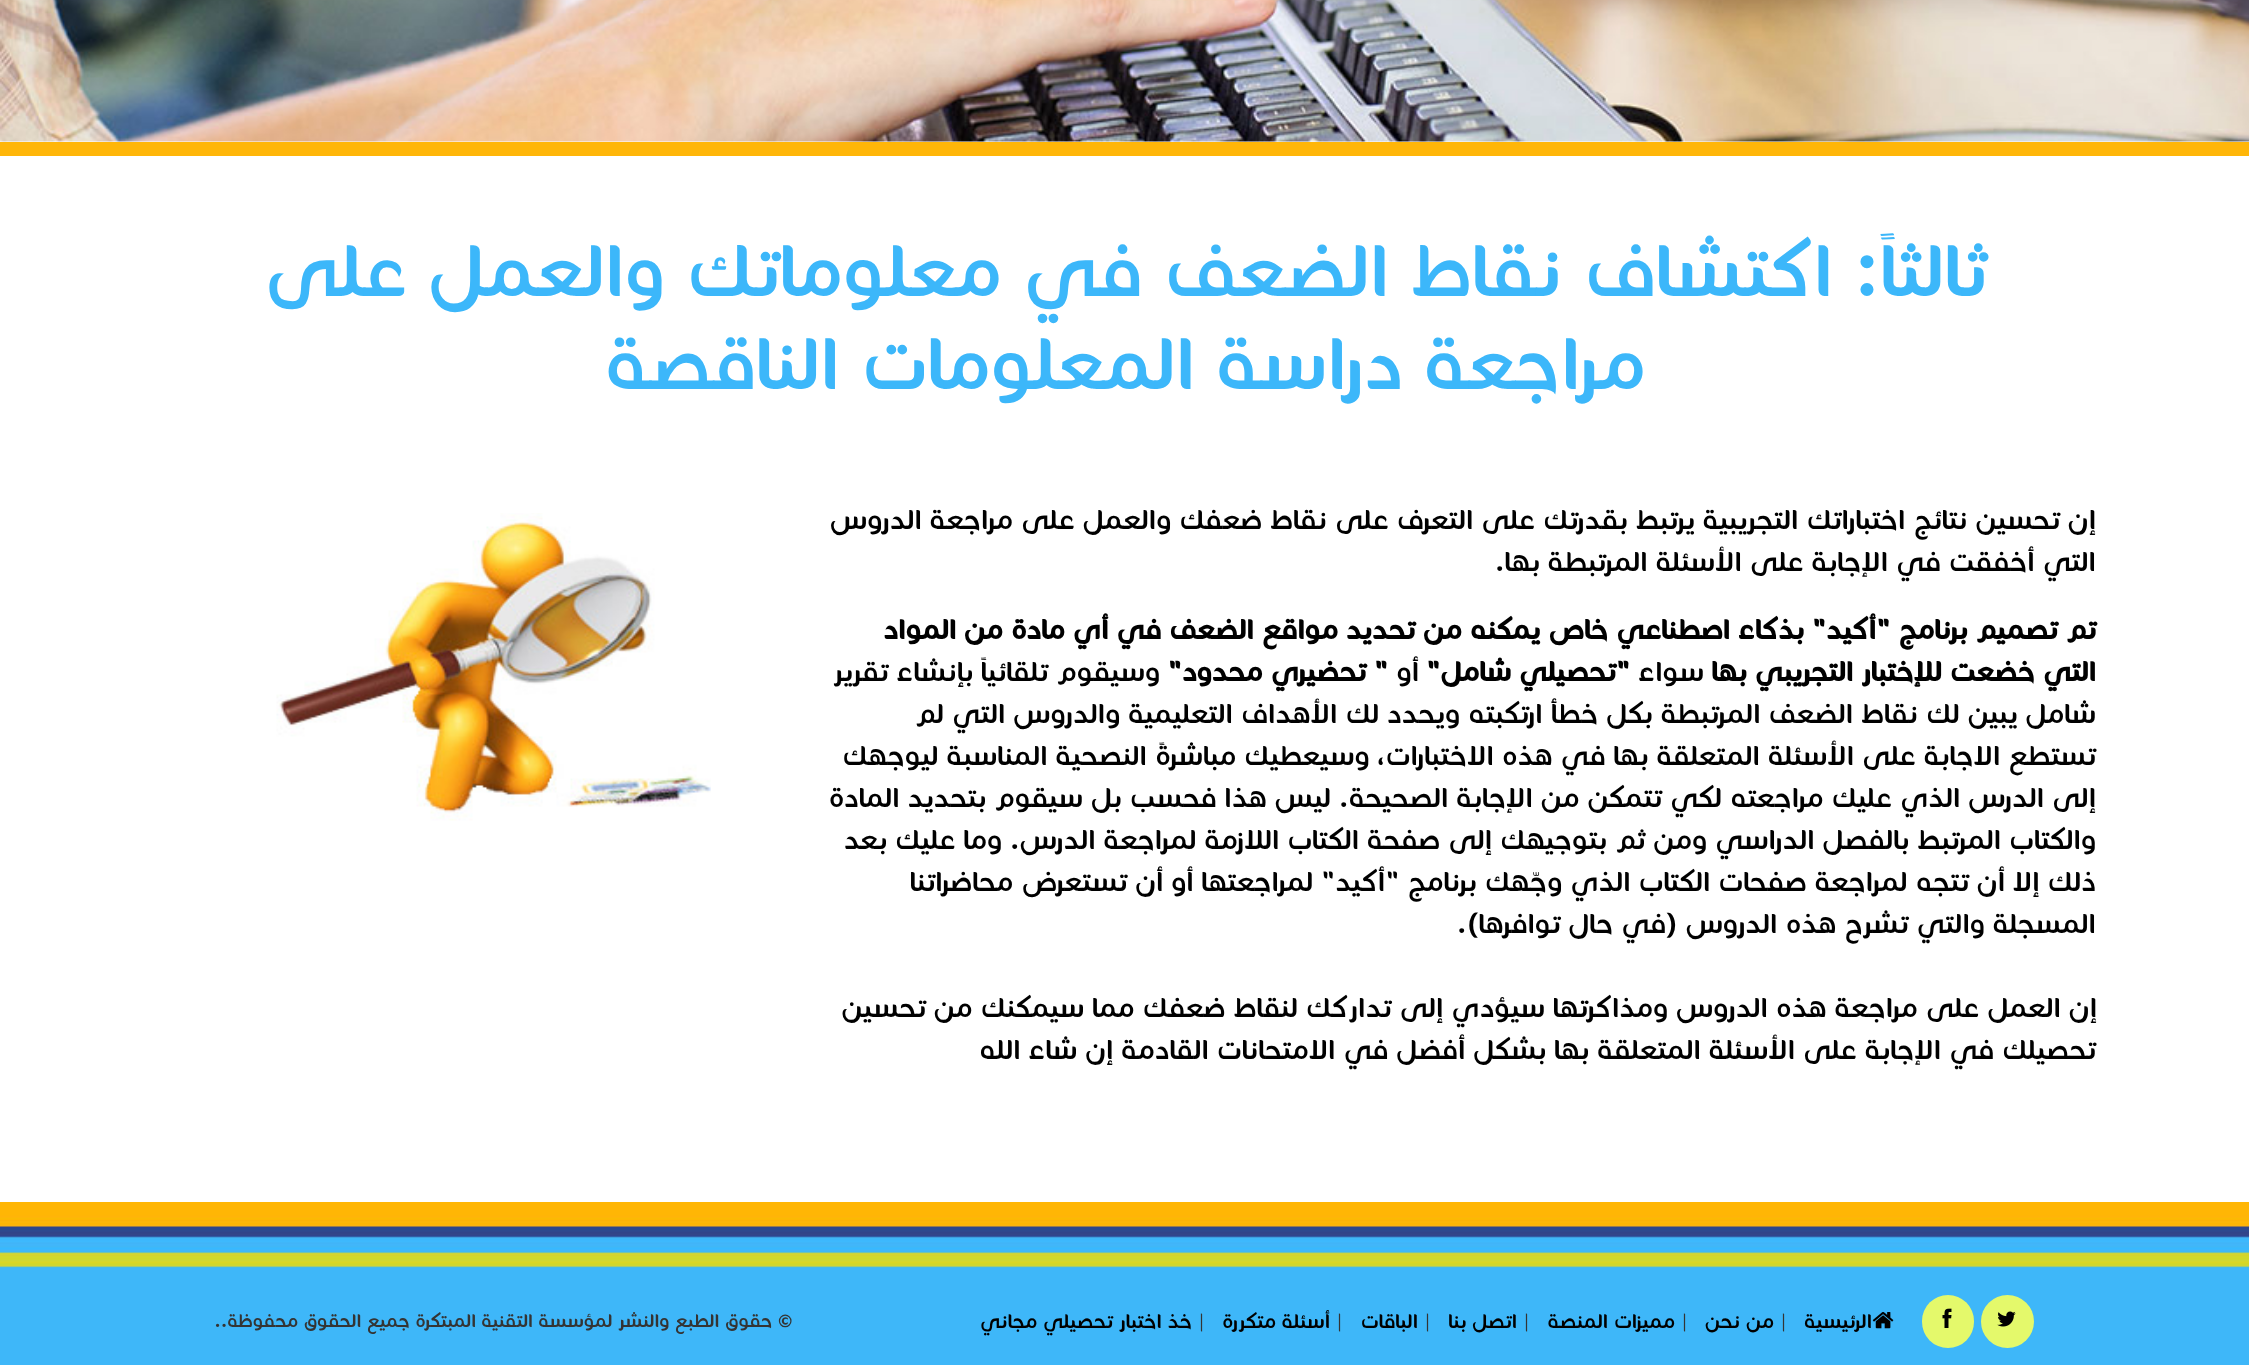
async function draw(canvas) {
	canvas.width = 2249;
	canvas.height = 1365;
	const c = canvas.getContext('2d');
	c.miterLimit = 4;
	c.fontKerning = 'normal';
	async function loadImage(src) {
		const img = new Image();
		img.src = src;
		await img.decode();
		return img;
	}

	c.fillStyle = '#fff';
	c.fillRect(0, 0, 2249, 1365);
	c.fillStyle = '#ffb608';
	c.fillRect(0, 142, 2249, 14);
	c.drawImage(await loadImage('img1.png'), 0, 0, 2249, 142);
	c.direction = 'rtl';
	c.font = '84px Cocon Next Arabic';
	c.fillStyle = '#3cb7fa';
	c.fillText('ثالثاً: اكتشاف نقاط الضعف في معلوماتك والعمل على', 1987, 296);
	c.fillText('مراجعة دراسة المعلومات الناقصة', 1646, 389);
	c.font = '31.5px Cocon Next Arabic';
	c.fillStyle = '#000';
	c.fillText('إن تحسين نتائج اختباراتك التجريبية يرتبط بقدرتك على التعرف على نقاط ضعفك والعمل على مراجعة الدروس', 2096, 529);
	c.fillText('التي أخفقت في الإجابة على الأسئلة المرتبطة بها.', 2096, 571);
	c.font = 'bold 31.5px Cocon Next Arabic';
	c.fillText('تم تصميم برنامج "أكيد" بذكاء اصطناعي خاص يمكنه من تحديد مواقع الضعف في أي مادة من المواد', 2096, 639);
	c.fillText('التي خضعت للإختبار التجريبي بها', 2096, 681);
	c.font = '31.5px Cocon Next Arabic';
	c.fillText('سواءً', 1704, 681);
	c.font = 'bold 31.5px Cocon Next Arabic';
	c.fillText('"تحصيلي شامل"', 1630, 681);
	c.font = '31.5px Cocon Next Arabic';
	c.fillText('أو', 1419, 681);
	c.font = 'bold 31.5px Cocon Next Arabic';
	c.fillText('" تحضيري محدود"', 1388, 681);
	c.font = '31.5px Cocon Next Arabic';
	for (const [text, x, y] of [
		['وسيقوم تلقائياً بإنشاء تقرير', 1160, 681],
		['شامل يبين لك نقاط الضعف المرتبطة بكل خطأ ارتكبته ويحدد لك الأهداف التعليمية والدروس التي لم', 2096, 723],
		['تستطع الاجابة على الأسئلة المتعلقة بها في هذه الاختبارات، وسيعطيك مباشرةً النصحية المناسبة ليوجهك', 2096, 765],
		['إلى الدرس الذي عليك مراجعته لكي تتمكن من الإجابة الصحيحة. ليس هذا فحسب بل سيقوم بتحديد المادة', 2096, 807],
		['والكتاب المرتبط بالفصل الدراسي ومن ثم', 2096, 849],
		['بتوجيهك إلى صفحة الكتاب اللازمة لمراجعة الدرس. وما عليك بعد', 1607, 849],
		['ذلك إلا أن تتجه لمراجعة صفحات الكتاب الذي وجّهك برنامج "أكيد" لمراجعتها أو أن تستعرض محاضراتنا', 2096, 891],
		['المسجلة والتي تشرح هذه الدروس (في حال توافرها).', 2096, 933],
		['إن العمل على مراجعة هذه الدروس ومذاكرتها سيؤدي إلى تداركك لنقاط ضعفك مما سيمكنك من تحسين', 2097, 1017],
		['تحصيلك في الإجابة على الأسئلة المتعلقة بها بشكل أفضل في الامتحانات القادمة إن شاء الله', 2096, 1059],
	]) {
		c.fillText(text, x, y);
	}
	c.drawImage(await loadImage('img2.png'), 276, 513, 435, 308);
	c.fillStyle = '#3eb7f9';
	c.fillRect(0, 1268, 2249, 97);
	c.drawImage(await loadImage('img3.png'), 0, 1202, 2249, 66);
	c.fillStyle = '#e4f96b';
	c.beginPath();
	c.arc(2007.5, 1321.5, 26.5, 0, 2 * Math.PI);
	c.fill();
	c.drawImage(await loadImage('img4.png'), 1997, 1311, 19, 16);
	c.beginPath();
	c.roundRect(1922, 1295, 52, 53, 26);
	c.fill();
	c.drawImage(await loadImage('img5.png'), 1942, 1308, 10, 20);
	c.drawImage(await loadImage('img6.png'), 1872, 1312, 22, 17);
	c.font = '22.75px Cocon Next Arabic';
	c.fillStyle = '#000';
	c.fillText('الرئيسية', 1872, 1328);
	c.direction = 'ltr';
	c.fillStyle = '#343434';
	c.fillText('|', 1781, 1328);
	c.direction = 'rtl';
	c.fillStyle = '#000';
	c.fillText('من نحن', 1774, 1328);
	c.direction = 'ltr';
	c.fillStyle = '#343434';
	c.fillText('|', 1682, 1328);
	c.direction = 'rtl';
	c.fillStyle = '#000';
	c.fillText('مميزات المنصة', 1675, 1328);
	c.direction = 'ltr';
	c.fillStyle = '#343434';
	c.fillText('|', 1524, 1328);
	c.direction = 'rtl';
	c.fillStyle = '#000';
	c.fillText('اتصل بنا', 1517, 1328);
	c.direction = 'ltr';
	c.fillStyle = '#343434';
	c.fillText('|', 1425, 1328);
	c.direction = 'rtl';
	c.fillStyle = '#000';
	c.fillText('الباقات', 1418, 1328);
	c.direction = 'ltr';
	c.fillStyle = '#343434';
	c.fillText('|', 1337, 1328);
	c.direction = 'rtl';
	c.fillStyle = '#000';
	c.fillText('أسئلة متكررة', 1330, 1328);
	c.direction = 'ltr';
	c.fillStyle = '#343434';
	c.fillText('|', 1199, 1328);
	c.direction = 'rtl';
	c.fillStyle = '#000';
	c.fillText('خذ اختبار تحصيلي مجاني', 1192, 1328);
	c.font = '21px Cocon Next Arabic';
	c.fillStyle = '#343434';
	c.fillText('© حقوق الطبع والنشر لمؤسسة التقنية المبتكرة جميع الحقوق محفوظة..', 793, 1327);
}

draw(document.querySelector('canvas'));
